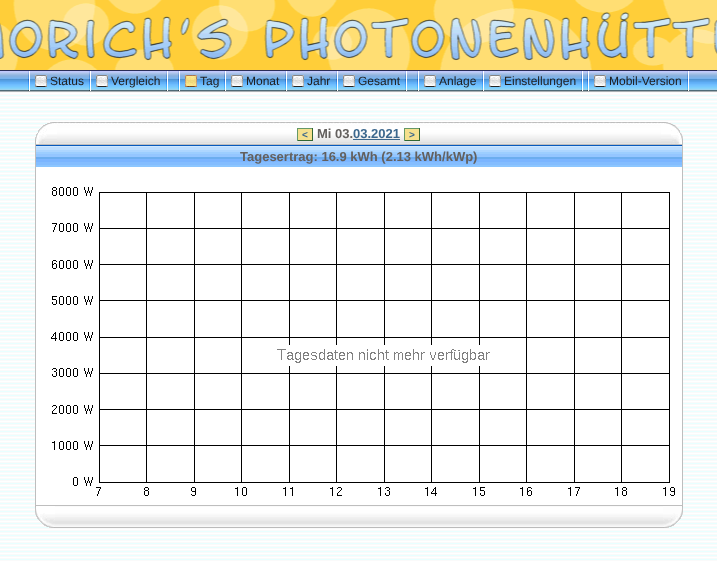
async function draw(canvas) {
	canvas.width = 717;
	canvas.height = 561;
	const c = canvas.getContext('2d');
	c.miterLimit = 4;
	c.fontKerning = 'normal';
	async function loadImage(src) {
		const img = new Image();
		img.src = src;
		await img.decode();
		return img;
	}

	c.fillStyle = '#fff';
	c.fillRect(0, 0, 717, 561);
	c.drawImage(await loadImage('img1.png'), 0, 92, 717, 469);
	c.drawImage(await loadImage('img2.png'), 0, 0, 717, 70);
	c.drawImage(await loadImage('img3.png'), 0, 70, 717, 22);
	c.drawImage(await loadImage('img4.png'), 28, 71, 2, 20);
	c.drawImage(await loadImage('img5.png'), 35, 75, 12, 12);
	c.font = '12px Liberation Sans';
	c.fillStyle = '#202020';
	c.fillText('Status', 50, 85);
	c.drawImage(await loadImage('img4.png'), 89, 71, 2, 20);
	c.drawImage(await loadImage('img5.png'), 96, 75, 12, 12);
	c.fillText('Vergleich', 111, 85);
	c.drawImage(await loadImage('img4.png'), 166, 71, 2, 20);
	c.drawImage(await loadImage('img4.png'), 178, 71, 2, 20);
	c.drawImage(await loadImage('img6.png'), 185, 75, 12, 12);
	c.fillText('Tag', 200, 85);
	c.drawImage(await loadImage('img4.png'), 224, 71, 2, 20);
	c.drawImage(await loadImage('img5.png'), 231, 75, 12, 12);
	c.fillText('Monat', 246, 85);
	c.drawImage(await loadImage('img4.png'), 285, 71, 2, 20);
	c.drawImage(await loadImage('img5.png'), 292, 75, 12, 12);
	c.fillText('Jahr', 307, 85);
	c.drawImage(await loadImage('img4.png'), 336, 71, 2, 20);
	c.drawImage(await loadImage('img5.png'), 343, 75, 12, 12);
	c.fillText('Gesamt', 358, 85);
	c.drawImage(await loadImage('img4.png'), 405, 71, 2, 20);
	c.drawImage(await loadImage('img4.png'), 417, 71, 2, 20);
	c.drawImage(await loadImage('img5.png'), 424, 75, 12, 12);
	c.fillText('Anlage', 439, 85);
	c.drawImage(await loadImage('img4.png'), 482, 71, 2, 20);
	c.drawImage(await loadImage('img5.png'), 489, 75, 12, 12);
	c.fillText('Einstellungen', 504, 85);
	c.drawImage(await loadImage('img4.png'), 581, 71, 2, 20);
	c.drawImage(await loadImage('img4.png'), 587, 71, 2, 20);
	c.drawImage(await loadImage('img5.png'), 594, 75, 12, 12);
	c.fillText('Mobil-Version', 609, 85);
	c.drawImage(await loadImage('img4.png'), 687, 71, 2, 20);
	c.drawImage(await loadImage('img7.png'), 35, 122, 22, 22);
	c.drawImage(await loadImage('img8.png'), 57, 122, 604, 22);
	c.fillStyle = '#f5e08d';
	c.fillRect(298, 129, 14, 11);
	c.font = 'bold 10px Liberation Sans';
	c.fillStyle = '#3b678d';
	c.fillText('<', 302, 138);
	for (const [x, y, w, h, color] of [
		[297, 128, 16, 1, '#696'],
		[312, 128, 1, 13, '#363'],
		[297, 140, 16, 1, '#363'],
		[297, 128, 1, 13, '#696'],
	]) {
		c.fillStyle = color;
		c.fillRect(x, y, w, h);
	}
	c.font = 'bold 13px Liberation Sans';
	c.fillStyle = '#63605e';
	c.fillText('Mi 03.', 317, 138);
	c.fillStyle = '#3b678d';
	c.fillRect(353, 139, 47, 1);
	c.fillText('03.2021', 353, 138);
	c.fillStyle = '#f5e08d';
	c.fillRect(405, 129, 14, 11);
	c.font = 'bold 10px Liberation Sans';
	c.fillStyle = '#3b678d';
	c.fillText('>', 409, 138);
	for (const [x, y, w, h, color] of [
		[404, 128, 16, 1, '#696'],
		[419, 128, 1, 13, '#363'],
		[404, 140, 16, 1, '#363'],
		[404, 128, 1, 13, '#696'],
	]) {
		c.fillStyle = color;
		c.fillRect(x, y, w, h);
	}
	c.drawImage(await loadImage('img9.png'), 661, 122, 22, 22);
	c.fillStyle = '#fff';
	c.fillRect(36, 167, 646, 338);
	c.strokeStyle = '#bebebe';
	c.strokeRect(35.5, 144.5, 647, 361);
	c.drawImage(await loadImage('img10.png'), 36, 145, 646, 22);
	c.font = 'bold 13px Liberation Sans';
	c.fillStyle = '#63605e';
	c.fillText('Tagesertrag: 16.9 kWh (2.13 kWh/kWp)', 240, 161);
	c.drawImage(await loadImage('img11.png'), 51, 187, 624, 309);
	c.drawImage(await loadImage('img12.png'), 35, 506, 20, 22);
	c.drawImage(await loadImage('img13.png'), 55, 507, 608, 21);
	c.drawImage(await loadImage('img14.png'), 663, 506, 20, 22);
}

draw(document.querySelector('canvas'));
